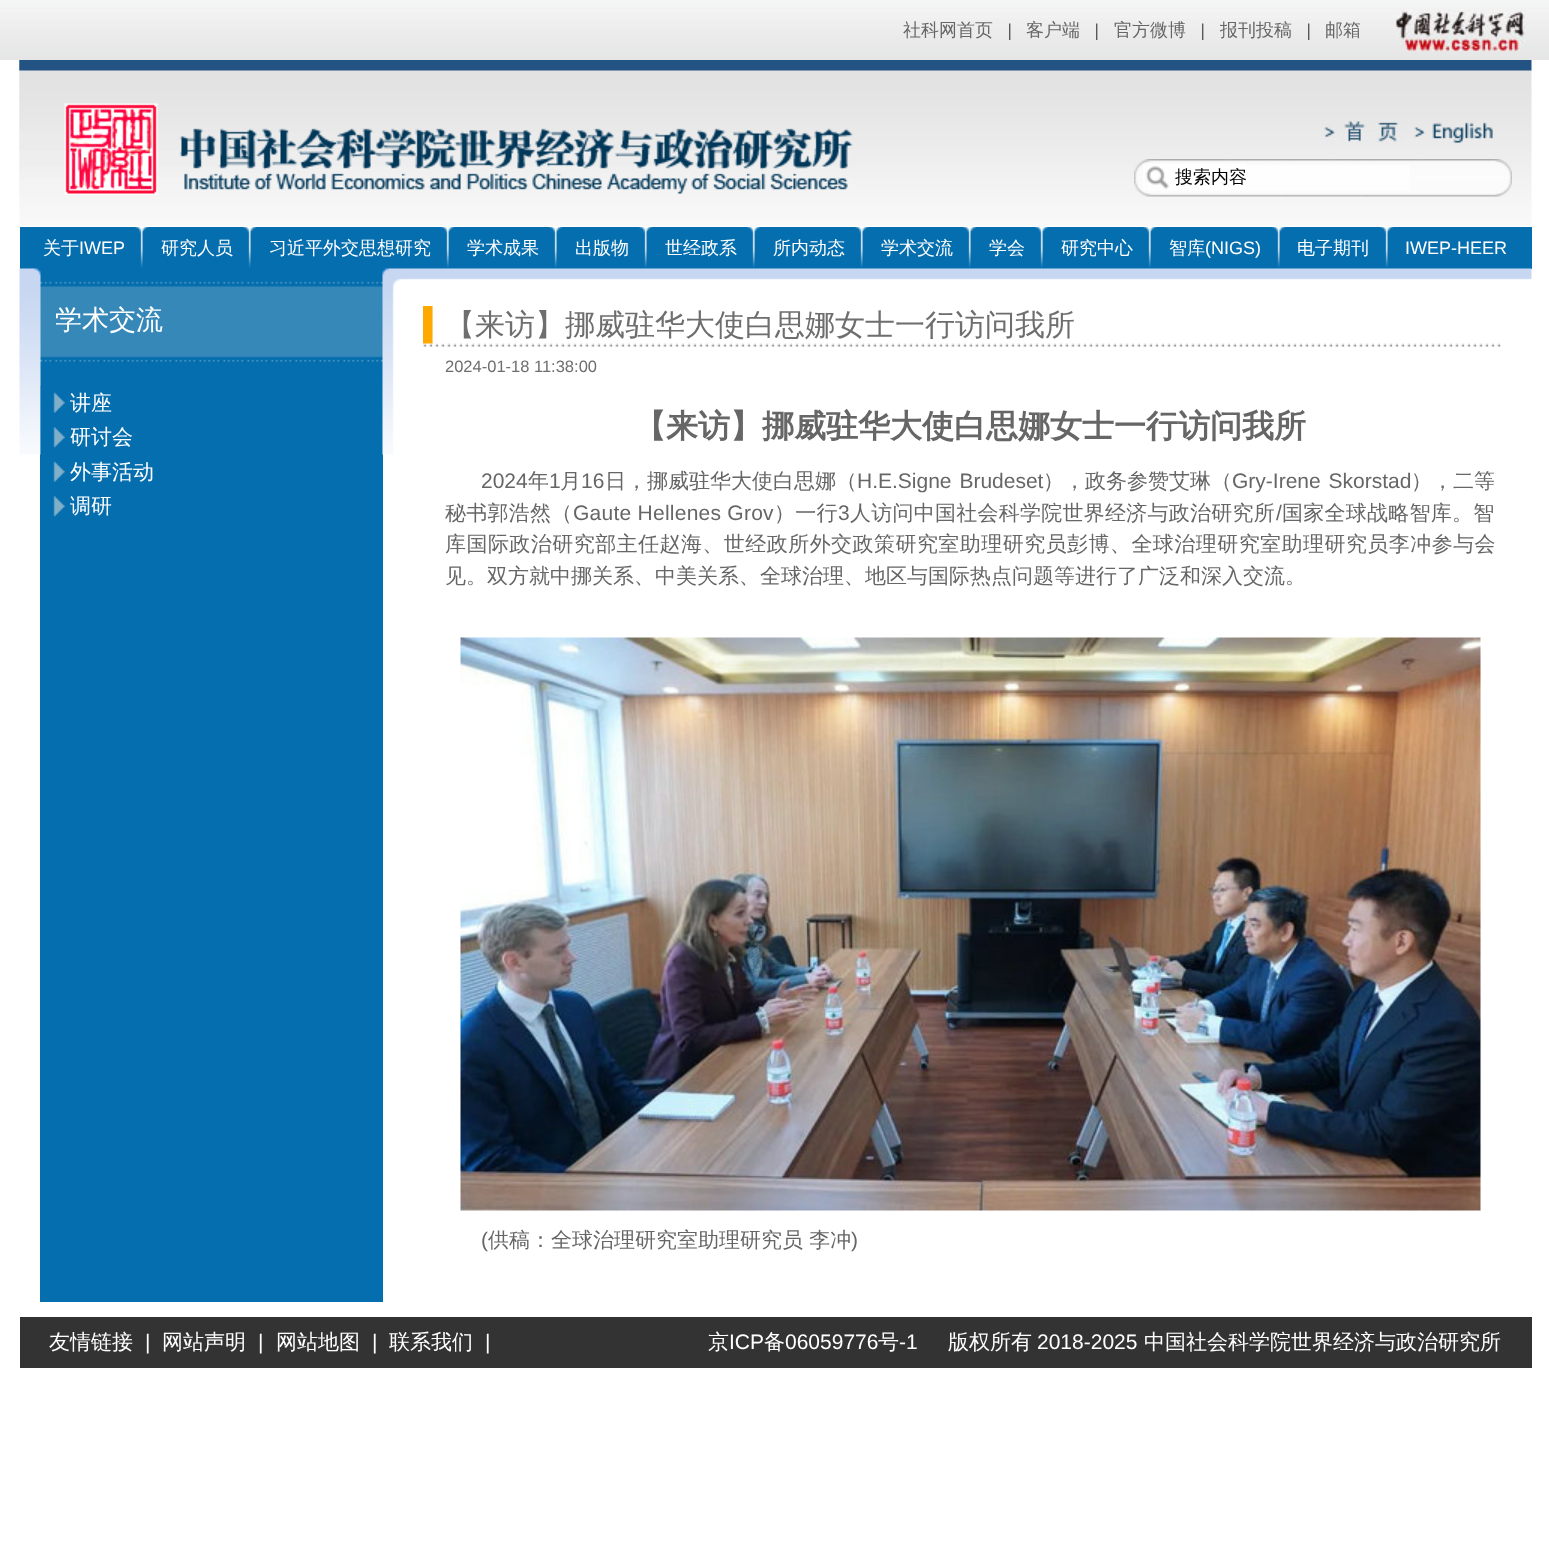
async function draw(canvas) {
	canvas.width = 1549;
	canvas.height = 1541;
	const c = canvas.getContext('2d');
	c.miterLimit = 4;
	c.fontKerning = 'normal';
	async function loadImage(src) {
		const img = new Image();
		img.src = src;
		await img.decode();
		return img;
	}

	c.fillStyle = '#fff';
	c.fillRect(0, 0, 1549, 1541);
	c.drawImage(await loadImage('img1.png'), 0, 0, 1549, 60);
	c.drawImage(await loadImage('img2.png'), 1395, 10, 131, 41);
	c.font = '500 18px WenQuanYi Zen Hei';
	c.fillStyle = '#666';
	c.fillText('社科网首页', 903, 36);
	c.font = '18px Liberation Serif';
	c.fillStyle = '#000';
	c.fillText('|', 1008, 36);
	c.font = '500 18px WenQuanYi Zen Hei';
	c.fillStyle = '#666';
	c.fillText('客户端', 1026, 36);
	c.font = '18px Liberation Serif';
	c.fillStyle = '#000';
	c.fillText('|', 1095, 36);
	c.font = '500 18px WenQuanYi Zen Hei';
	c.fillStyle = '#666';
	c.fillText('官方微博', 1114, 36);
	c.font = '18px Liberation Serif';
	c.fillStyle = '#000';
	c.fillText('|', 1201, 36);
	c.font = '500 18px WenQuanYi Zen Hei';
	c.fillStyle = '#666';
	c.fillText('报刊投稿', 1220, 36);
	c.font = '18px Liberation Serif';
	c.fillStyle = '#000';
	c.fillText('|', 1307, 36);
	c.font = '500 18px WenQuanYi Zen Hei';
	c.fillStyle = '#666';
	c.fillText('邮箱', 1325, 36);
	c.drawImage(await loadImage('img3.png'), 19, 60, 1513, 166);
	c.drawImage(await loadImage('img4.png'), 19, 60, 834, 135);
	c.drawImage(await loadImage('img5.png'), 1321, 120, 85, 24);
	c.drawImage(await loadImage('img6.png'), 1414, 122, 79, 21);
	c.drawImage(await loadImage('img7.png'), 1134, 159, 378, 38);
	c.drawImage(await loadImage('img8.png'), 1145, 164, 24, 26);
	c.fillStyle = '#000';
	c.fillText('搜索内容', 1175, 183);
	c.fillStyle = '#056eaf';
	c.fillRect(20, 227, 1512, 42);
	c.drawImage(await loadImage('img9.png'), 135, 227, 14, 41);
	c.fillStyle = '#fff';
	c.fillText('关于', 43, 254);
	c.font = '18px Liberation Sans';
	c.fillText('IWEP', 79, 254);
	c.drawImage(await loadImage('img9.png'), 243, 227, 14, 41);
	c.font = '500 18px WenQuanYi Zen Hei';
	c.fillText('研究人员', 161, 254);
	c.drawImage(await loadImage('img10.png'), 441, 227, 14, 41);
	c.fillText('习近平外交思想研究', 269, 254);
	c.drawImage(await loadImage('img9.png'), 549, 227, 14, 41);
	c.fillText('学术成果', 467, 254);
	c.drawImage(await loadImage('img9.png'), 639, 227, 14, 41);
	c.fillText('出版物', 575, 254);
	c.drawImage(await loadImage('img10.png'), 747, 227, 14, 41);
	c.fillText('世经政系', 665, 254);
	c.drawImage(await loadImage('img9.png'), 855, 227, 14, 41);
	c.fillText('所内动态', 773, 254);
	c.drawImage(await loadImage('img9.png'), 963, 227, 14, 41);
	c.fillText('学术交流', 881, 254);
	c.drawImage(await loadImage('img10.png'), 1035, 227, 14, 41);
	c.fillText('学会', 989, 254);
	c.drawImage(await loadImage('img10.png'), 1143, 227, 14, 41);
	c.fillText('研究中心', 1061, 254);
	c.drawImage(await loadImage('img9.png'), 1272, 227, 14, 41);
	c.fillText('智库', 1169, 254);
	c.font = '18px Liberation Sans';
	c.fillText('(NIGS)', 1205, 254);
	c.drawImage(await loadImage('img9.png'), 1380, 227, 14, 41);
	c.font = '500 18px WenQuanYi Zen Hei';
	c.fillText('电子期刊', 1297, 254);
	c.font = '18px Liberation Sans';
	c.fillText('IWEP-HEER', 1405, 254);
	c.fillStyle = '#056eaf';
	c.fillRect(40, 454, 343, 848);
	c.drawImage(await loadImage('img11.png'), 19, 268, 1513, 187);
	c.save();
	c.beginPath();
	c.rect(56, 269, 324, 87);
	c.clip();
	c.font = '500 27px WenQuanYi Zen Hei';
	c.fillStyle = '#fff';
	c.fillText('学术交流', 55, 329);
	c.restore();
	c.drawImage(await loadImage('img12.png'), 40, 385, 25, 35);
	c.font = '500 21px WenQuanYi Zen Hei';
	c.fillStyle = '#fff';
	c.fillText('讲座', 70, 410);
	c.drawImage(await loadImage('img13.png'), 40, 420, 25, 35);
	c.fillText('研讨会', 70, 444);
	c.drawImage(await loadImage('img14.png'), 53, 461, 12, 21);
	c.fillText('外事活动', 70, 479);
	c.drawImage(await loadImage('img15.png'), 53, 496, 12, 21);
	c.fillText('调研', 70, 513);
	c.drawImage(await loadImage('img17.png'), 423, 343, 1080, 4);
	c.drawImage(await loadImage('img16.png'), 423, 306, 21, 38);
	c.font = '500 30px WenQuanYi Zen Hei';
	c.fillStyle = '#6e6e6e';
	c.fillText('【来访】挪威驻华大使白思娜女士一行访问我所', 445, 335);
	c.font = '16.5px Liberation Sans';
	c.fillText('2024-01-18 11:38:00', 445, 372);
	c.font = 'bold 32px WenQuanYi Zen Hei';
	c.fillStyle = '#666';
	c.fillText('【来访】挪威驻华大使白思娜女士一行访问我所', 634, 437);
	c.font = '21px Liberation Sans';
	c.fillText('2024', 481, 488);
	c.font = '500 21px WenQuanYi Zen Hei';
	c.fillText('年', 528, 488);
	c.font = '21px Liberation Sans';
	c.fillText('1', 549, 488);
	c.font = '500 21px WenQuanYi Zen Hei';
	c.fillText('月', 560, 488);
	c.font = '21px Liberation Sans';
	c.fillText('16', 581, 488);
	c.font = '500 21px WenQuanYi Zen Hei';
	c.fillText('日，挪威驻华大使白思娜（', 605, 488);
	c.wordSpacing = '2px';
	c.font = '21px Liberation Sans';
	c.fillText('H.E.Signe Brudeset', 857, 488);
	c.wordSpacing = '0px';
	c.font = '500 21px WenQuanYi Zen Hei';
	c.fillText('），政务参赞艾琳（', 1043, 488);
	c.wordSpacing = '2px';
	c.font = '21px Liberation Sans';
	c.fillText('Gry-Irene Skorstad', 1232, 488);
	c.wordSpacing = '0px';
	c.font = '500 21px WenQuanYi Zen Hei';
	c.fillText('），二等', 1411, 488);
	c.letterSpacing = '0.25px';
	c.fillText('秘书郭浩然（', 445, 520);
	c.font = '21px Liberation Sans';
	c.fillText('Gaute Hellenes Grov', 573, 520);
	c.font = '500 21px WenQuanYi Zen Hei';
	c.fillText('）一行', 774, 520);
	c.font = '21px Liberation Sans';
	c.fillText('3', 838, 520);
	c.font = '500 21px WenQuanYi Zen Hei';
	c.fillText('人访问中国社会科学院世界经济与政治研究所', 850, 520);
	c.font = '21px Liberation Sans';
	c.fillText('/', 1276, 520);
	c.font = '500 21px WenQuanYi Zen Hei';
	c.fillText('国家全球战略智库。智', 1282, 520);
	c.letterSpacing = '0.45px';
	c.fillText('库国际政治研究部主任赵海、世经政所外交政策研究室助理研究员彭博、全球治理研究室助理研究员李冲参与会', 445, 551);
	c.letterSpacing = '0px';
	c.fillText('见。双方就中挪关系、中美关系、全球治理、地区与国际热点问题等进行了广泛和深入交流。', 445, 583);
	c.drawImage(await loadImage('img18.png'), 460, 637, 1021, 574);
	c.font = '21px Liberation Sans';
	c.fillText('(', 481, 1247);
	c.font = '500 21px WenQuanYi Zen Hei';
	c.fillText('供稿：全球治理研究室助理研究员 李冲', 488, 1247);
	c.font = '21px Liberation Sans';
	c.fillText(')', 851, 1247);
	c.fillStyle = '#333';
	c.fillRect(20, 1317, 1512, 51);
	c.font = '500 21px WenQuanYi Zen Hei';
	c.fillStyle = '#fff';
	c.fillText('友情链接', 49, 1349);
	c.font = '21px Liberation Sans';
	c.fillText('|', 145, 1349);
	c.font = '500 21px WenQuanYi Zen Hei';
	c.fillText('网站声明', 162, 1349);
	c.font = '21px Liberation Sans';
	c.fillText('|', 258, 1349);
	c.font = '500 21px WenQuanYi Zen Hei';
	c.fillText('网站地图', 276, 1349);
	c.font = '21px Liberation Sans';
	c.fillText('|', 372, 1349);
	c.font = '500 21px WenQuanYi Zen Hei';
	c.fillText('联系我们', 389, 1349);
	c.font = '21px Liberation Sans';
	c.fillText('|', 485, 1349);
	c.font = '500 21px WenQuanYi Zen Hei';
	c.fillText('京', 708, 1349);
	c.font = '21px Liberation Sans';
	c.fillText('ICP', 729, 1349);
	c.font = '500 21px WenQuanYi Zen Hei';
	c.fillText('备', 764, 1349);
	c.font = '21px Liberation Sans';
	c.fillText('06059776', 785, 1349);
	c.font = '500 21px WenQuanYi Zen Hei';
	c.fillText('号', 878, 1349);
	c.font = '21px Liberation Sans';
	c.fillText('-1', 899, 1349);
	c.font = '500 21px WenQuanYi Zen Hei';
	c.fillText('版权所有', 948, 1349);
	c.font = '21px Liberation Sans';
	c.fillText('2018-2025', 1037, 1349);
	c.font = '500 21px WenQuanYi Zen Hei';
	c.fillText('中国社会科学院世界经济与政治研究所', 1144, 1349);
}

draw(document.querySelector('canvas'));
